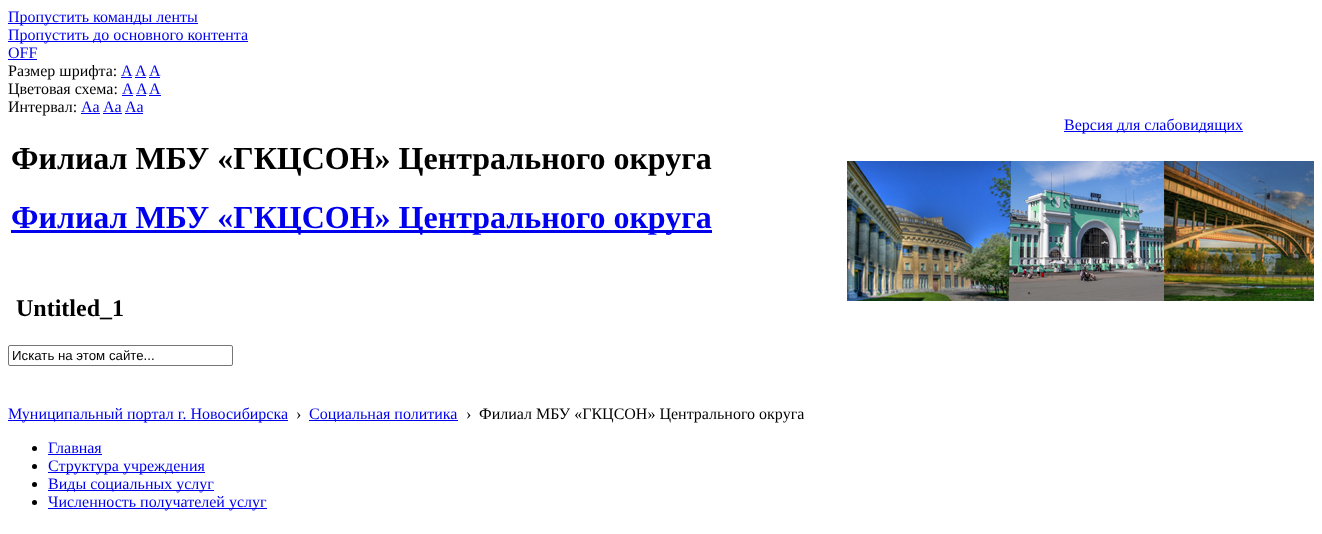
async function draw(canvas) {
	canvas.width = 1322;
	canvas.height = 534;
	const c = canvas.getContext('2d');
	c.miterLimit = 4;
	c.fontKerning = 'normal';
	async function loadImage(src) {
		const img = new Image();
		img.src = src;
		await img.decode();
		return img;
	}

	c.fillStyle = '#fff';
	c.fillRect(0, 0, 1322, 534);
	c.fillStyle = '#00e';
	c.fillRect(8, 23, 190, 1);
	c.font = '16px Liberation Serif';
	c.fillText('Пропустить команды ленты', 8, 22);
	c.fillRect(8, 41, 240, 1);
	c.fillText('Пропустить до основного контента', 8, 40);
	c.fillText('OFF', 8, 58);
	c.fillRect(8, 59, 29, 1);
	c.fillStyle = '#000';
	c.fillText('Размер шрифта:', 8, 76);
	c.fillStyle = '#00e';
	c.fillText('A', 121, 76);
	c.fillRect(121, 77, 11, 1);
	c.fillText('A', 135, 76);
	c.fillRect(135, 77, 11, 1);
	c.fillText('A', 149, 76);
	c.fillRect(149, 77, 11, 1);
	c.fillStyle = '#000';
	c.fillText('Цветовая схема:', 8, 94);
	c.fillStyle = '#00e';
	c.fillText('A', 122, 94);
	c.fillRect(122, 95, 11, 1);
	c.fillText('A', 136, 94);
	c.fillRect(136, 95, 10, 1);
	c.fillText('A', 149, 94);
	c.fillRect(149, 95, 12, 1);
	c.fillStyle = '#000';
	c.fillText('Интервал:', 8, 112);
	c.fillStyle = '#00e';
	c.fillText('Aa', 81, 112);
	c.fillRect(81, 113, 19, 1);
	c.fillText('Aa', 103, 112);
	c.fillRect(103, 113, 19, 1);
	c.fillText('Aa', 125, 112);
	c.fillRect(125, 113, 18, 1);
	c.fillRect(1064, 131, 179, 1);
	c.fillText('Версия для слабовидящих', 1064, 130);
	c.drawImage(await loadImage('img1.png'), 847, 161, 467, 140);
	c.font = 'bold 32px Liberation Serif';
	c.fillStyle = '#000';
	c.fillText('Филиал МБУ «ГКЦСОН» Центрального округа', 11, 169);
	c.fillStyle = '#00e';
	c.fillRect(11, 230, 701, 3);
	c.fillText('Филиал МБУ «ГКЦСОН» Центрального округа', 11, 228);
	c.font = 'bold 24px Liberation Serif';
	c.fillStyle = '#000';
	c.fillText('Untitled_1', 16, 316);
	c.beginPath();
	c.roundRect(8.5, 345.5, 224, 20, 1.5);
	c.strokeStyle = '#767676';
	c.stroke();
	c.font = '13.25px Liberation Sans';
	c.fillText('Искать на этом сайте...', 12, 360);
	c.fillStyle = '#00e';
	c.fillRect(8, 420, 280, 1);
	c.font = '16px Liberation Serif';
	c.fillText('Муниципальный портал г. Новосибирска', 8, 419);
	c.fillStyle = '#000';
	c.fillText('›', 296, 419);
	c.fillStyle = '#00e';
	c.fillRect(309, 420, 149, 1);
	c.fillText('Социальная политика', 309, 419);
	c.fillStyle = '#000';
	c.fillText('›', 466, 419);
	c.fillText('Филиал МБУ «ГКЦСОН» Центрального округа', 479, 419);
	c.beginPath();
	c.arc(34.5, 448.5, 2.5, 0, 2 * Math.PI);
	c.fill();
	c.fillStyle = '#00e';
	c.fillText('Главная', 48, 453);
	c.fillRect(48, 454, 54, 1);
	c.fillStyle = '#000';
	c.beginPath();
	c.arc(34.5, 466.5, 2.5, 0, 2 * Math.PI);
	c.fill();
	c.fillStyle = '#00e';
	c.fillRect(48, 472, 157, 1);
	c.fillText('Структура учреждения', 48, 471);
	c.fillStyle = '#000';
	c.beginPath();
	c.arc(34.5, 484.5, 2.5, 0, 2 * Math.PI);
	c.fill();
	c.fillStyle = '#00e';
	c.fillRect(48, 490, 166, 1);
	c.fillText('Виды социальных услуг', 48, 489);
	c.fillStyle = '#000';
	c.beginPath();
	c.arc(34.5, 502.5, 2.5, 0, 2 * Math.PI);
	c.fill();
	c.fillStyle = '#00e';
	c.fillRect(48, 508, 219, 1);
	c.fillText('Численность получателей услуг', 48, 507);
}

draw(document.querySelector('canvas'));
